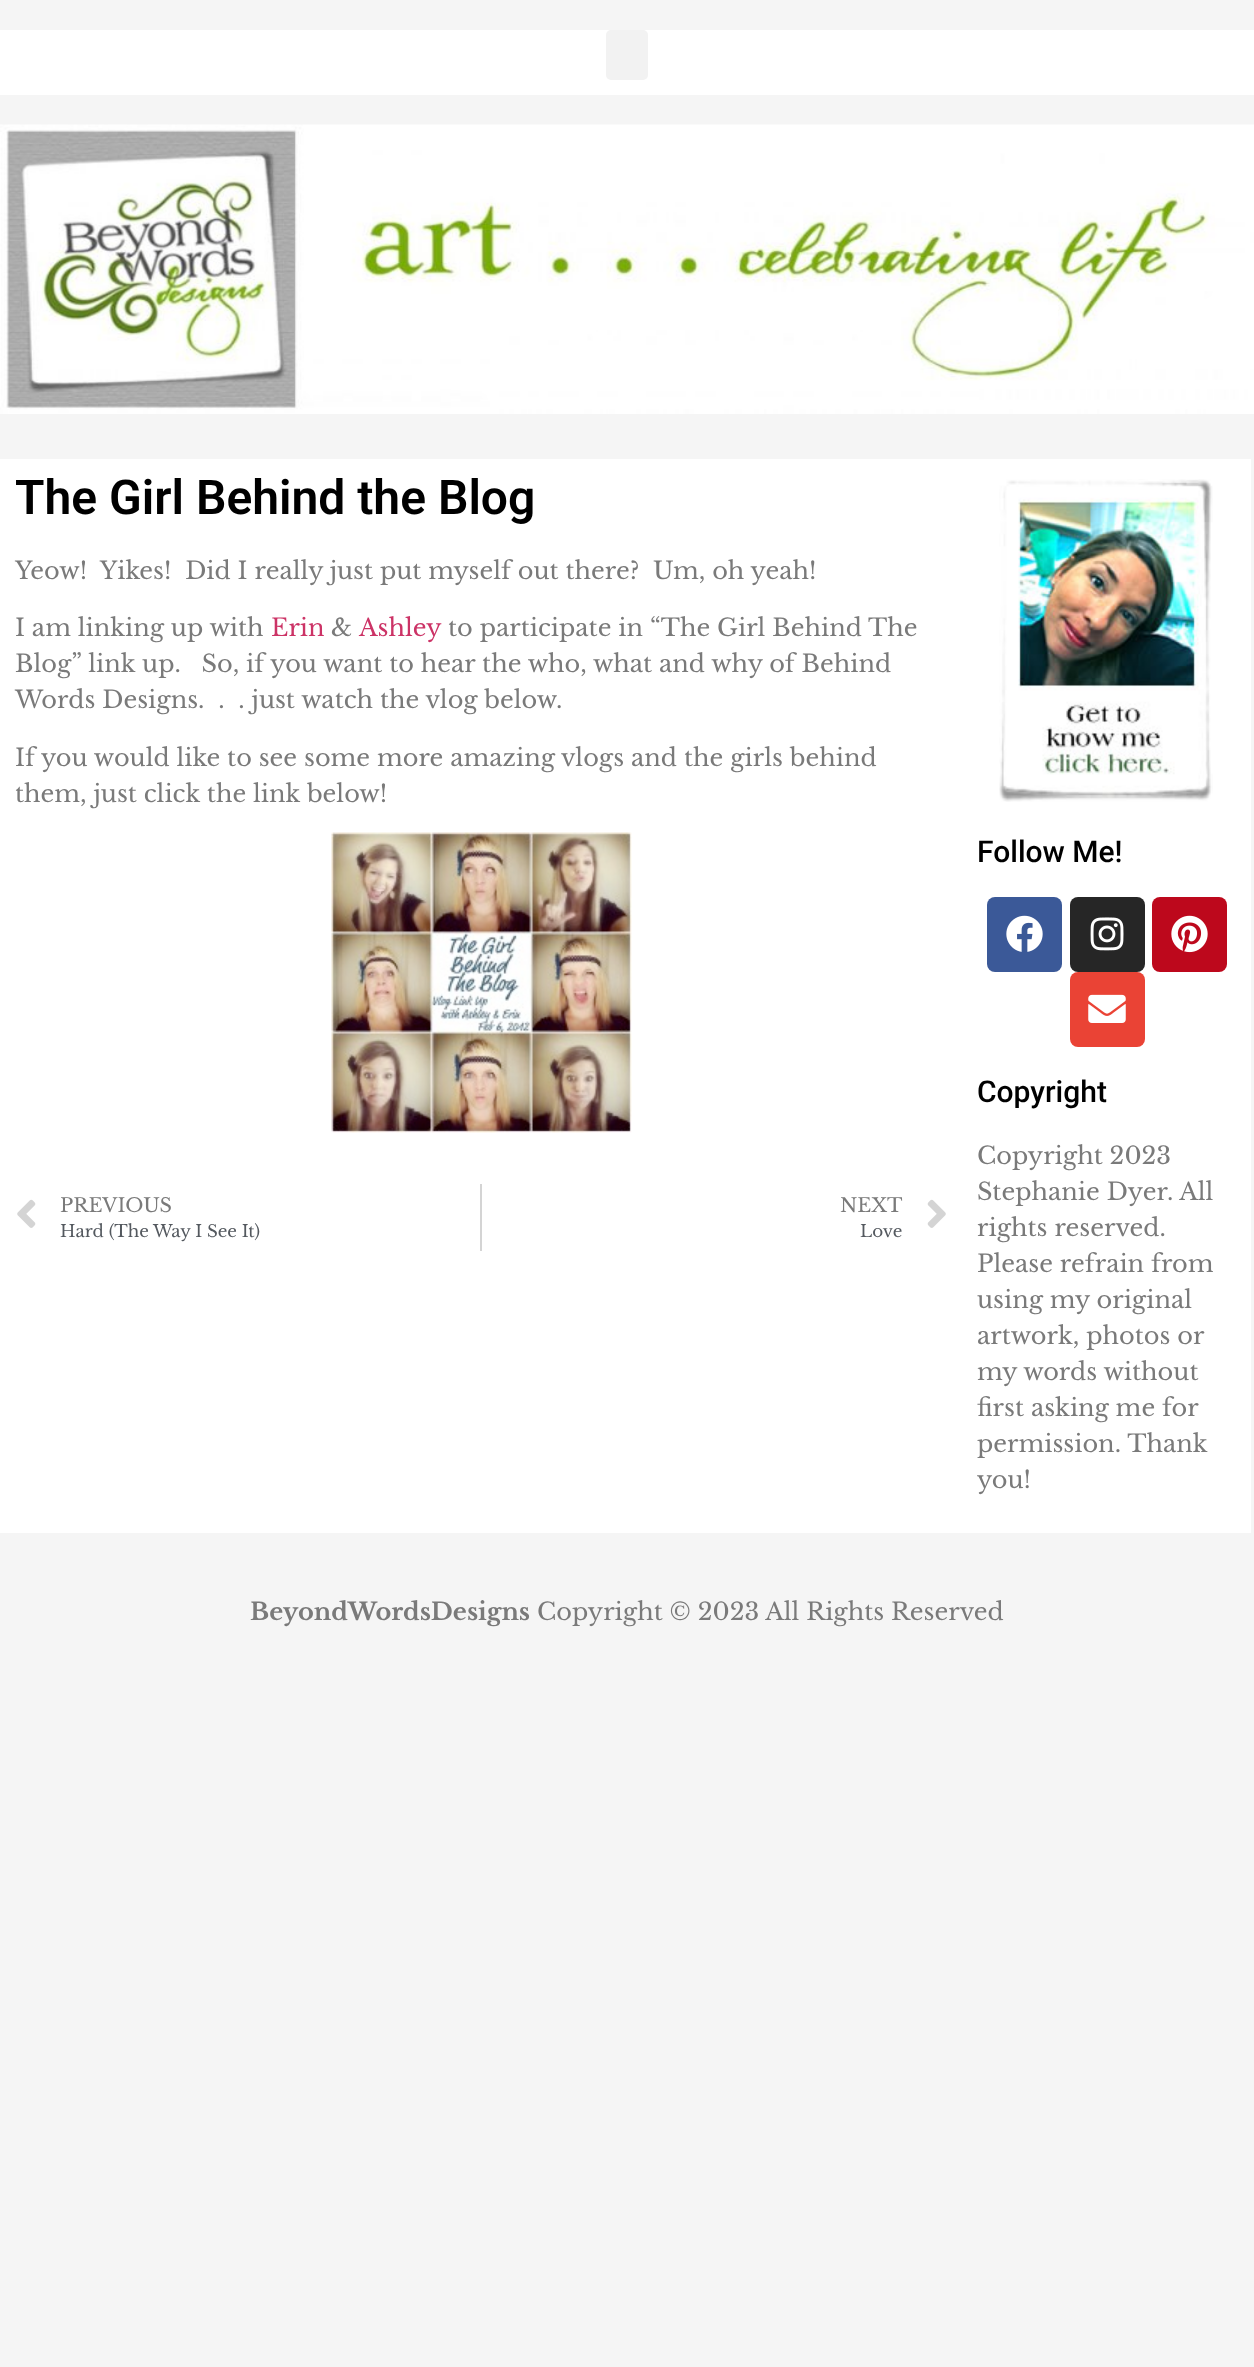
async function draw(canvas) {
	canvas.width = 1254;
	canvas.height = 2367;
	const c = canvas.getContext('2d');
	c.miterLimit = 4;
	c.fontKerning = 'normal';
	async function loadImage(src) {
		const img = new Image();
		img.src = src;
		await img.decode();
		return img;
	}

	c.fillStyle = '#f5f5f5';
	c.fillRect(0, 0, 1254, 2367);
	c.fillStyle = '#fff';
	c.fillRect(0, 30, 1254, 65);
	c.fillStyle = '#f2f2f2';
	c.beginPath();
	c.roundRect(606, 30, 42, 50, 5);
	c.fill();
	c.drawImage(await loadImage('img1.png'), 0, 124, 1254, 290);
	c.fillStyle = '#fff';
	c.fillRect(0, 459, 1251, 1074);
	c.font = '600 48px Roboto';
	c.fillStyle = '#000';
	c.fillText('The Girl Behind the Blog', 15, 514);
	c.font = '24px Libre Baskerville';
	c.fillStyle = '#7a7a7a';
	c.fillText('Yeow!  Yikes!  Did I really just put myself out there?  Um, oh yeah!', 15, 579);
	c.fillText('I am linking up with', 15, 636);
	c.fillStyle = '#c36';
	c.fillText('Erin', 271, 636);
	c.fillStyle = '#7a7a7a';
	c.fillText('&', 331, 636);
	c.fillStyle = '#c36';
	c.fillText('Ashley', 359, 636);
	c.fillStyle = '#7a7a7a';
	for (const [text, x, y] of [
		['to participate in “The Girl Behind The', 448, 636],
		['Blog” link up.   So, if you want to hear the who, what and why of Behind', 15, 672],
		['Words Designs.  .  . just watch the vlog below.', 15, 708],
		['If you would like to see some more amazing vlogs and the girls behind', 15, 766],
		['them, just click the link below!', 15, 802],
	]) {
		c.fillText(text, x, y);
	}
	c.drawImage(await loadImage('img2.png'), 331, 832, 301, 301);
	c.drawImage(await loadImage('img3.png'), 17, 1199, 19, 29);
	c.font = '19.25px Libre Baskerville';
	c.fillText('PREVIOUS', 60, 1212);
	c.font = '16.75px Libre Baskerville';
	c.fillStyle = '#54595f';
	c.fillText('Hard (The Way I See It)', 60, 1237);
	c.fillStyle = '#d4d4d4';
	c.fillRect(480, 1184, 2, 67);
	c.font = '19.25px Libre Baskerville';
	c.fillStyle = '#7a7a7a';
	c.fillText('NEXT', 840, 1212);
	c.font = '16.75px Libre Baskerville';
	c.fillStyle = '#54595f';
	c.fillText('Love', 860, 1237);
	c.drawImage(await loadImage('img4.png'), 927, 1199, 19, 29);
	c.drawImage(await loadImage('img5.png'), 999, 479, 214, 323);
	c.font = '500 30px Roboto';
	c.fillStyle = '#000';
	c.fillText('Follow Me!', 977, 862);
	c.fillStyle = '#3b5998';
	c.beginPath();
	c.roundRect(987, 897, 75, 75, 8);
	c.fill();
	c.drawImage(await loadImage('img6.png'), 1006, 915, 37, 37);
	c.fillStyle = '#262626';
	c.beginPath();
	c.roundRect(1070, 897, 75, 75, 8);
	c.fill();
	c.drawImage(await loadImage('img7.png'), 1090, 917, 34, 34);
	c.fillStyle = '#bd081c';
	c.beginPath();
	c.roundRect(1152, 897, 75, 75, 8);
	c.fill();
	c.drawImage(await loadImage('img8.png'), 1171, 915, 37, 38);
	c.fillStyle = '#ea4335';
	c.beginPath();
	c.roundRect(1070, 972, 75, 75, 8);
	c.fill();
	c.drawImage(await loadImage('img9.png'), 1088, 994, 38, 29);
	c.fillStyle = '#000';
	c.fillText('Copyright', 977, 1102);
	c.font = '24px Libre Baskerville';
	c.fillStyle = '#7a7a7a';
	for (const [text, x, y] of [
		['Copyright 2023', 977, 1164],
		['Stephanie Dyer. All', 977, 1200],
		['rights reserved.', 977, 1236],
		['Please refrain from', 977, 1272],
		['using my original', 977, 1308],
		['artwork, photos or', 977, 1344],
		['my words without', 977, 1380],
		['first asking me for', 977, 1416],
		['permission. Thank', 977, 1452],
		['you!', 977, 1488],
	]) {
		c.fillText(text, x, y);
	}
	c.font = 'bold 24px Libre Baskerville';
	c.fillText('BeyondWordsDesigns', 250, 1620);
	c.font = '24px Libre Baskerville';
	c.fillText('Copyright © 2023 All Rights Reserved', 537, 1620);
}

draw(document.querySelector('canvas'));
